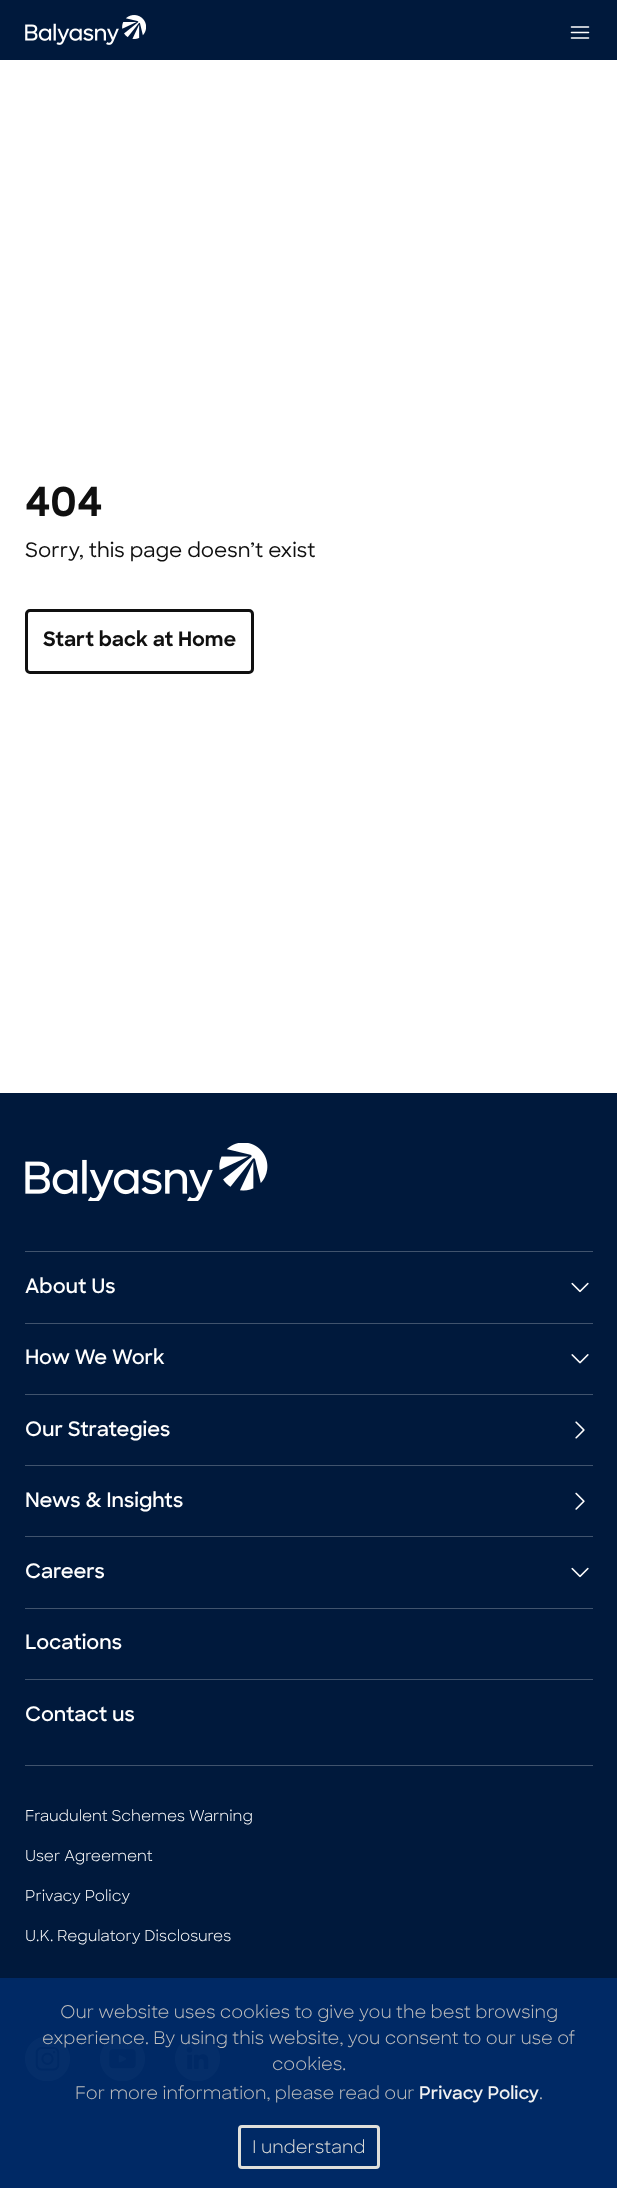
async function draw(canvas) {
	canvas.width = 617;
	canvas.height = 2188;
	const c = canvas.getContext('2d');
	c.miterLimit = 4;
	c.fontKerning = 'normal';
	async function loadImage(src) {
		const img = new Image();
		img.src = src;
		await img.decode();
		return img;
	}

	c.fillStyle = '#fff';
	c.fillRect(0, 0, 617, 2188);
	c.fillStyle = '#00193c';
	c.fillRect(0, 0, 617, 60);
	c.drawImage(await loadImage('img1.png'), 25, 15, 121, 30);
	c.beginPath();
	c.moveTo(571.5, 27);
	c.lineTo(588.5, 27);
	c.moveTo(571.5, 32.5);
	c.lineTo(588.5, 32.5);
	c.moveTo(571.5, 38);
	c.lineTo(588.5, 38);
	c.strokeStyle = '#fff';
	c.lineWidth = 1.6;
	c.lineCap = 'round';
	c.lineJoin = 'round';
	c.stroke();
	c.font = 'bold 40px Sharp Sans';
	c.fillStyle = '#101010';
	c.fillText('404', 25, 516);
	c.font = '500 20px Sharp Sans';
	c.fillText('Sorry, this page doesn’t exist', 25, 557);
	c.beginPath();
	c.roundRect(26.5, 610.5, 226, 62, 3.5);
	c.strokeStyle = '#101010';
	c.lineWidth = 3;
	c.lineJoin = 'miter';
	c.stroke();
	c.font = 'bold 20px Sharp Sans';
	c.fillText('Start back at Home', 43, 646);
	c.fillStyle = '#00193c';
	c.fillRect(0, 1093, 617, 1095);
	c.drawImage(await loadImage('img2.png'), 25, 1143, 243, 58);
	c.fillStyle = '#40536d';
	c.fillRect(25, 1251, 568, 1);
	c.fillRect(25, 1608, 568, 1);
	c.font = '600 20px Sharp Sans';
	c.fillStyle = '#fff';
	c.fillText('About Us', 25, 1293);
	c.drawImage(await loadImage('img3.png'), 571, 1282, 18, 11);
	c.fillStyle = '#40536d';
	c.fillRect(25, 1323, 568, 1);
	c.fillStyle = '#fff';
	c.fillText('How We Work', 25, 1364);
	c.drawImage(await loadImage('img4.png'), 571, 1354, 18, 10);
	c.fillStyle = '#40536d';
	c.fillRect(25, 1394, 568, 1);
	c.fillStyle = '#fff';
	c.fillText('Our Strategies', 25, 1436);
	c.drawImage(await loadImage('img5.png'), 575, 1421, 10, 18);
	c.fillStyle = '#40536d';
	c.fillRect(25, 1465, 568, 1);
	c.fillStyle = '#fff';
	c.fillText('News & Insights', 25, 1507);
	c.drawImage(await loadImage('img6.png'), 575, 1492, 10, 18);
	c.fillStyle = '#40536d';
	c.fillRect(25, 1536, 568, 1);
	c.fillStyle = '#fff';
	c.fillText('Careers', 25, 1578);
	c.drawImage(await loadImage('img3.png'), 571, 1567, 18, 11);
	c.fillText('Locations', 25, 1649);
	c.fillStyle = '#40536d';
	c.fillRect(25, 1679, 568, 1);
	c.fillStyle = '#fff';
	c.fillText('Contact us', 25, 1721);
	c.fillStyle = '#40536d';
	c.fillRect(25, 1765, 568, 1);
	c.font = '15px Sharp Sans';
	c.fillStyle = '#fff';
	for (const [text, x, y] of [
		['Fraudulent Schemes Warning', 25, 1821],
		['User Agreement', 25, 1861],
		['Privacy Policy', 25, 1901],
		['U.K. Regulatory Disclosures', 25, 1941],
	]) {
		c.fillText(text, x, y);
	}
	c.drawImage(await loadImage('img7.png'), 25, 2036, 45, 45);
	c.drawImage(await loadImage('img8.png'), 100, 2036, 45, 45);
	c.drawImage(await loadImage('img9.png'), 175, 2036, 45, 45);
	c.fillStyle = '#002a66fa';
	c.fillRect(0, 1978, 617, 210);
	c.font = '17.5px Sharp Sans';
	c.fillStyle = '#bdbdbd';
	for (const [text, x, y] of [
		['Our website uses cookies to give you the best browsing', 60, 2018],
		['experience. By using this website, you consent to our use of', 42, 2044],
		['cookies.', 272, 2070],
		['For more information, please read our', 75, 2099],
	]) {
		c.fillText(text, x, y);
	}
	c.font = '600 17.5px Sharp Sans';
	c.fillStyle = '#f2f2f2';
	c.fillText('Privacy Policy', 419, 2099);
	c.font = '17.5px Sharp Sans';
	c.fillStyle = '#bdbdbd';
	c.fillText('.', 539, 2099);
	c.beginPath();
	c.roundRect(239.5, 2126.5, 139, 41, 2.5);
	c.strokeStyle = '#dfdfdb';
	c.stroke();
	c.fillStyle = '#dfdfdb';
	c.fillText('I understand', 252, 2153);
}

draw(document.querySelector('canvas'));
